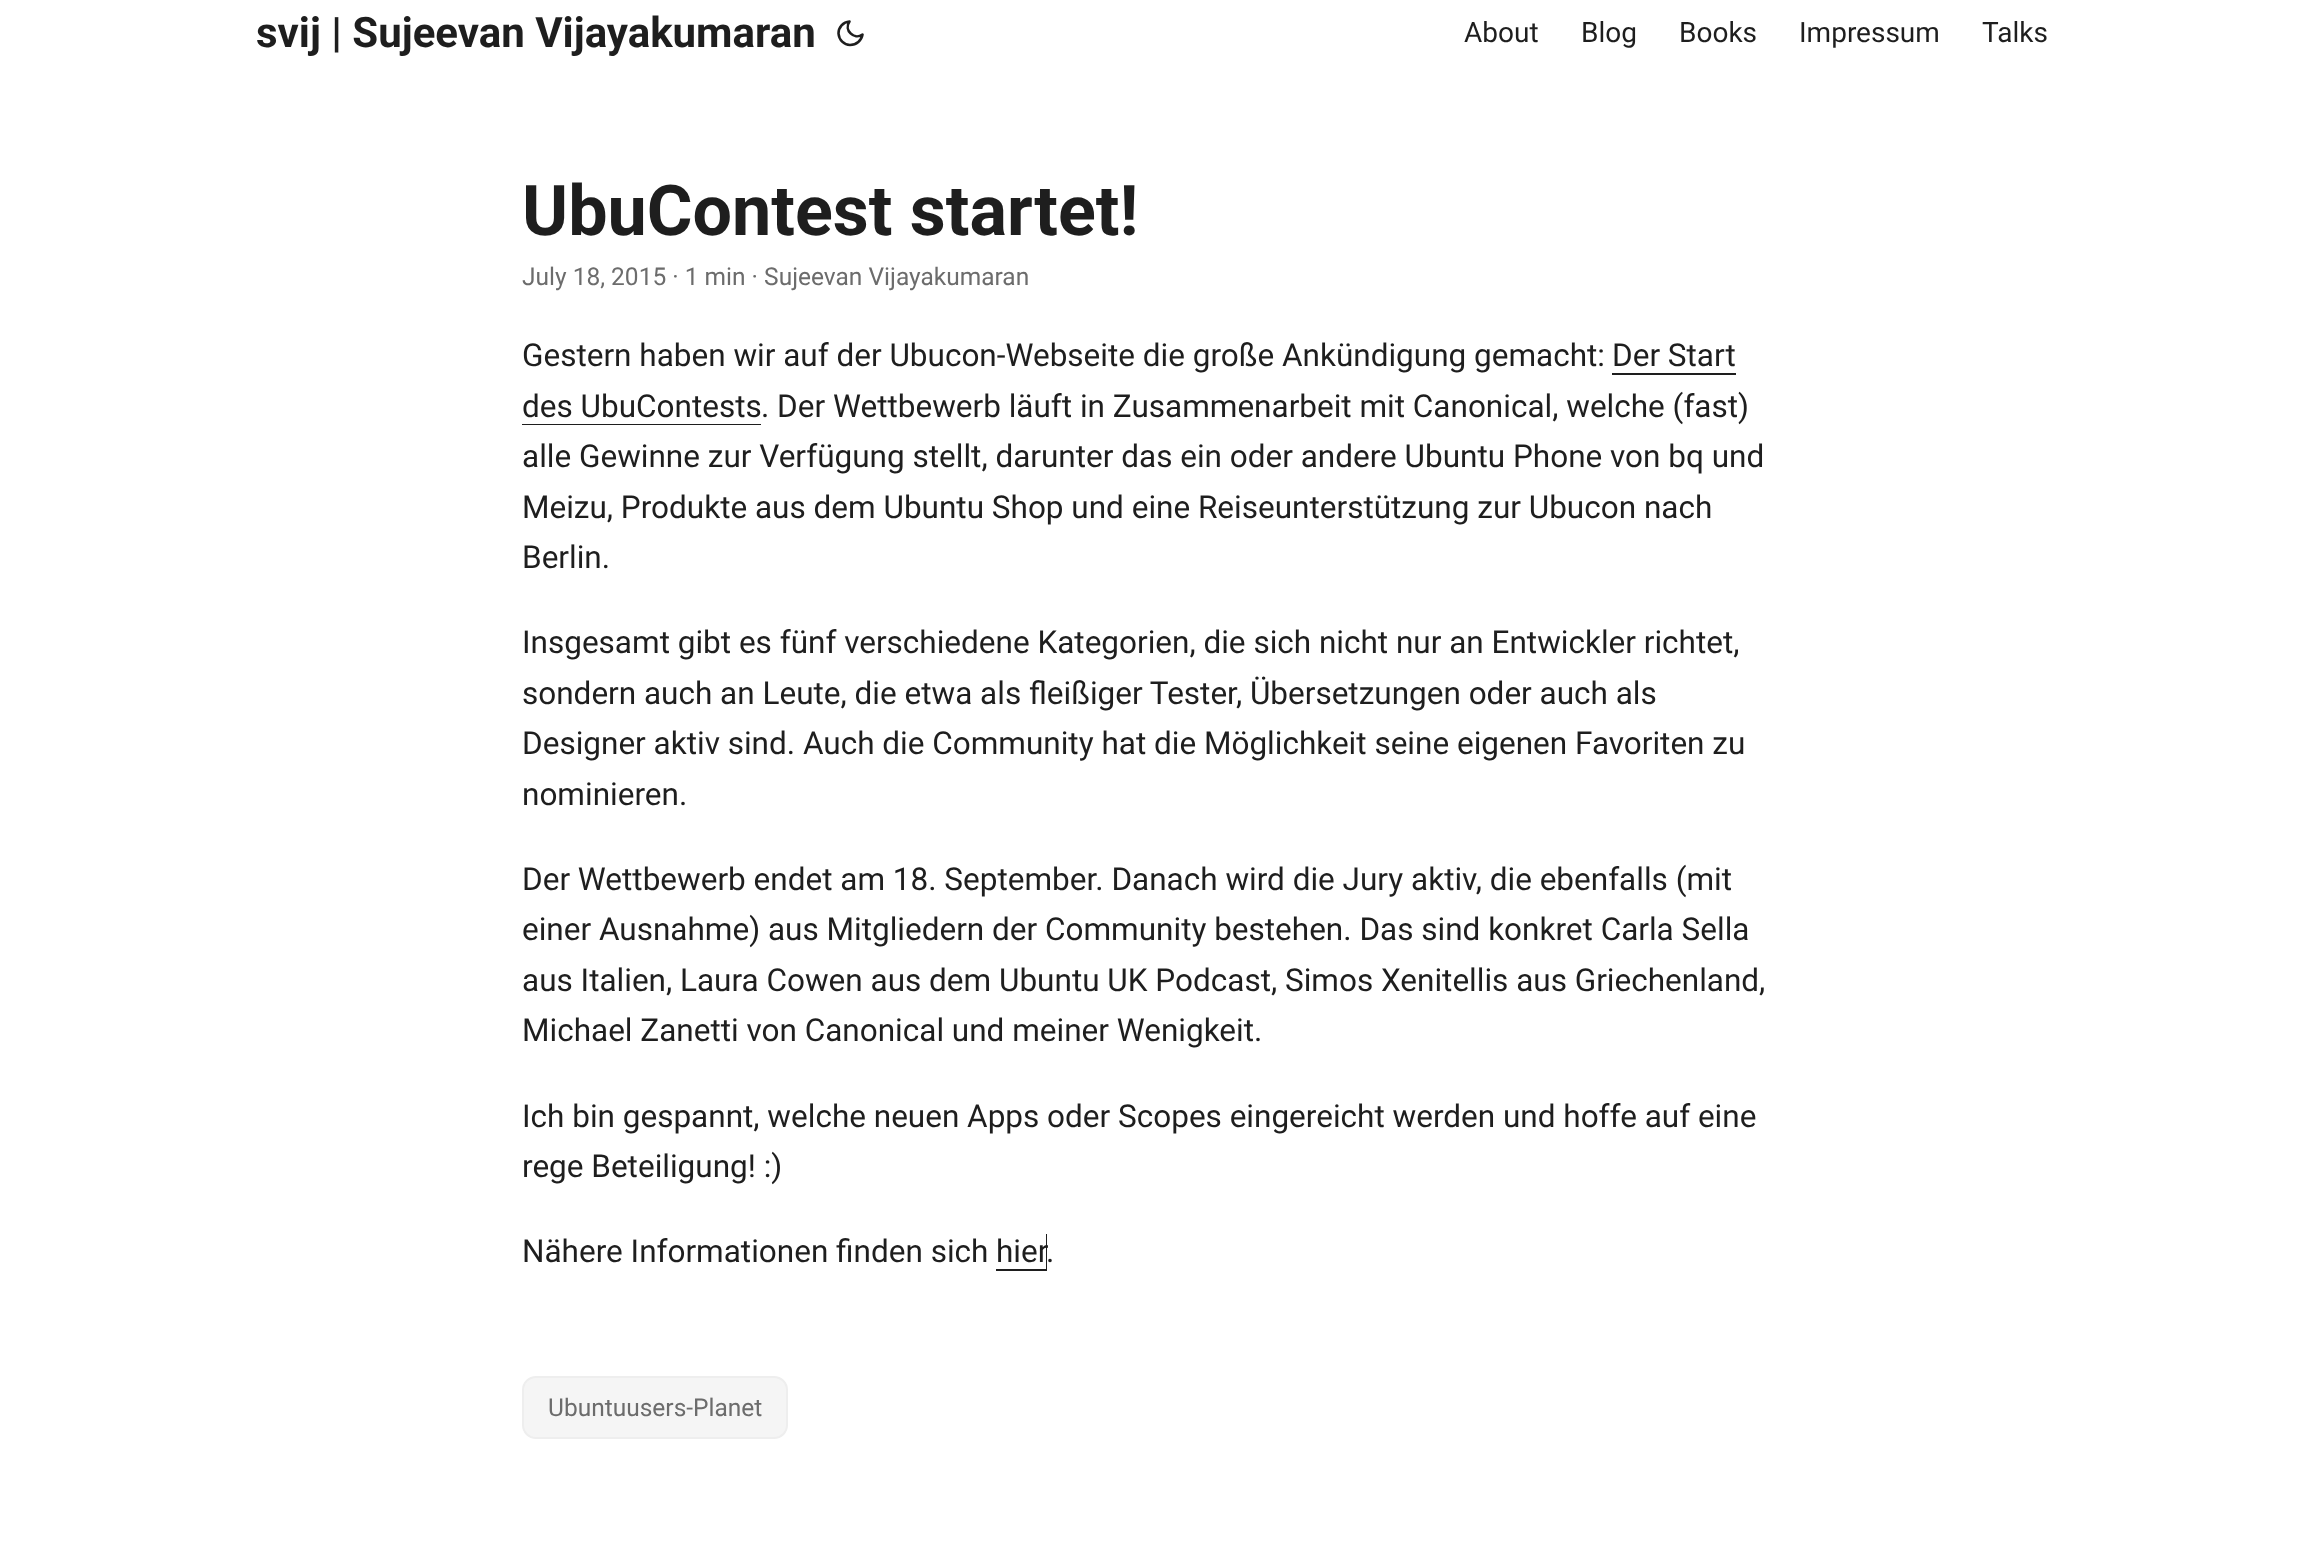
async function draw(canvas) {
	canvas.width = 2303;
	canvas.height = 1545;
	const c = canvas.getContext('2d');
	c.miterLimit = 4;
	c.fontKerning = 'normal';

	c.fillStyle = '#fff';
	c.fillRect(0, 0, 2303, 1545);
	c.font = 'bold 42px Roboto';
	c.fillStyle = '#1e1e1e';
	c.fillText('svij | Sujeevan Vijayakumaran', 256, 47);
	c.beginPath();
	c.moveTo(862.5, 34.5);
	c.bezierCurveTo(861.5, 40.5, 856.5, 45, 850, 45);
	c.bezierCurveTo(844, 45, 839, 40, 838.5, 33.5);
	c.bezierCurveTo(838.5, 27.5, 843, 22, 849.5, 21.5);
	c.bezierCurveTo(843.5, 30, 854, 40.5, 862.5, 34.5);
	c.closePath();
	c.strokeStyle = '#1e1e1e';
	c.lineWidth = 2.6;
	c.lineCap = 'round';
	c.lineJoin = 'round';
	c.stroke();
	c.font = '28px Roboto';
	for (const [text, x, y] of [
		['About', 1464, 42],
		['Blog', 1581, 42],
		['Books', 1679, 42],
		['Impressum', 1799, 42],
		['Talks', 1982, 42],
	]) {
		c.fillText(text, x, y);
	}
	c.font = 'bold 70px Roboto';
	c.fillText('UbuContest startet!', 522, 235);
	c.font = '24.5px Roboto';
	c.fillStyle = '#6c6c6c';
	c.fillText('July 18, 2015 · 1 min · Sujeevan Vijayakumaran', 522, 285);
	c.font = '31.5px Roboto';
	c.fillStyle = '#1e1e1e';
	c.fillText('Gestern haben wir auf der Ubucon-Webseite die große Ankündigung gemacht:', 522, 366);
	c.fillText('Der Start', 1612, 366);
	c.fillRect(1612, 373, 124, 2);
	c.fillText('des UbuContests', 522, 417);
	c.fillRect(522, 424, 239, 1);
	for (const [text, x, y] of [
		['. Der Wettbewerb läuft in Zusammenarbeit mit Canonical, welche (fast)', 761, 417],
		['alle Gewinne zur Verfügung stellt, darunter das ein oder andere Ubuntu Phone von bq und', 522, 467],
		['Meizu, Produkte aus dem Ubuntu Shop und eine Reiseunterstützung zur Ubucon nach', 522, 518],
		['Berlin.', 522, 568],
		['Insgesamt gibt es fünf verschiedene Kategorien, die sich nicht nur an Entwickler richtet,', 522, 653],
		['sondern auch an Leute, die etwa als fleißiger Tester, Übersetzungen oder auch als', 522, 704],
		['Designer aktiv sind. Auch die Community hat die Möglichkeit seine eigenen Favoriten zu', 522, 754],
		['nominieren.', 522, 805],
		['Der Wettbewerb endet am 18. September. Danach wird die Jury aktiv, die ebenfalls (mit', 522, 890],
		['einer Ausnahme) aus Mitgliedern der Community bestehen. Das sind konkret Carla Sella', 522, 940],
		['aus Italien, Laura Cowen aus dem Ubuntu UK Podcast, Simos Xenitellis aus Griechenland,', 522, 991],
		['Michael Zanetti von Canonical und meiner Wenigkeit.', 522, 1041],
		['Ich bin gespannt, welche neuen Apps oder Scopes eingereicht werden und hoffe auf eine', 522, 1127],
		['rege Beteiligung! :)', 522, 1177],
		['Nähere Informationen finden sich', 522, 1262],
	]) {
		c.fillText(text, x, y);
	}
	c.beginPath();
	c.moveTo(996, 1269);
	c.lineTo(996, 1271);
	c.lineTo(1047, 1271);
	c.lineTo(1047, 1234);
	c.lineTo(1046, 1234);
	c.lineTo(1046, 1269);
	c.closePath();
	c.fill();
	c.fillText('hier', 996, 1262);
	c.fillText('.', 1046, 1262);
	c.fillStyle = '#f5f5f5';
	c.beginPath();
	c.roundRect(523, 1377, 264, 61, 13);
	c.fill();
	c.strokeStyle = '#eee';
	c.lineWidth = 2;
	c.lineJoin = 'miter';
	c.stroke();
	c.font = '24.5px Roboto';
	c.fillStyle = '#6c6c6c';
	c.fillText('Ubuntuusers-Planet', 548, 1416);
}

draw(document.querySelector('canvas'));
